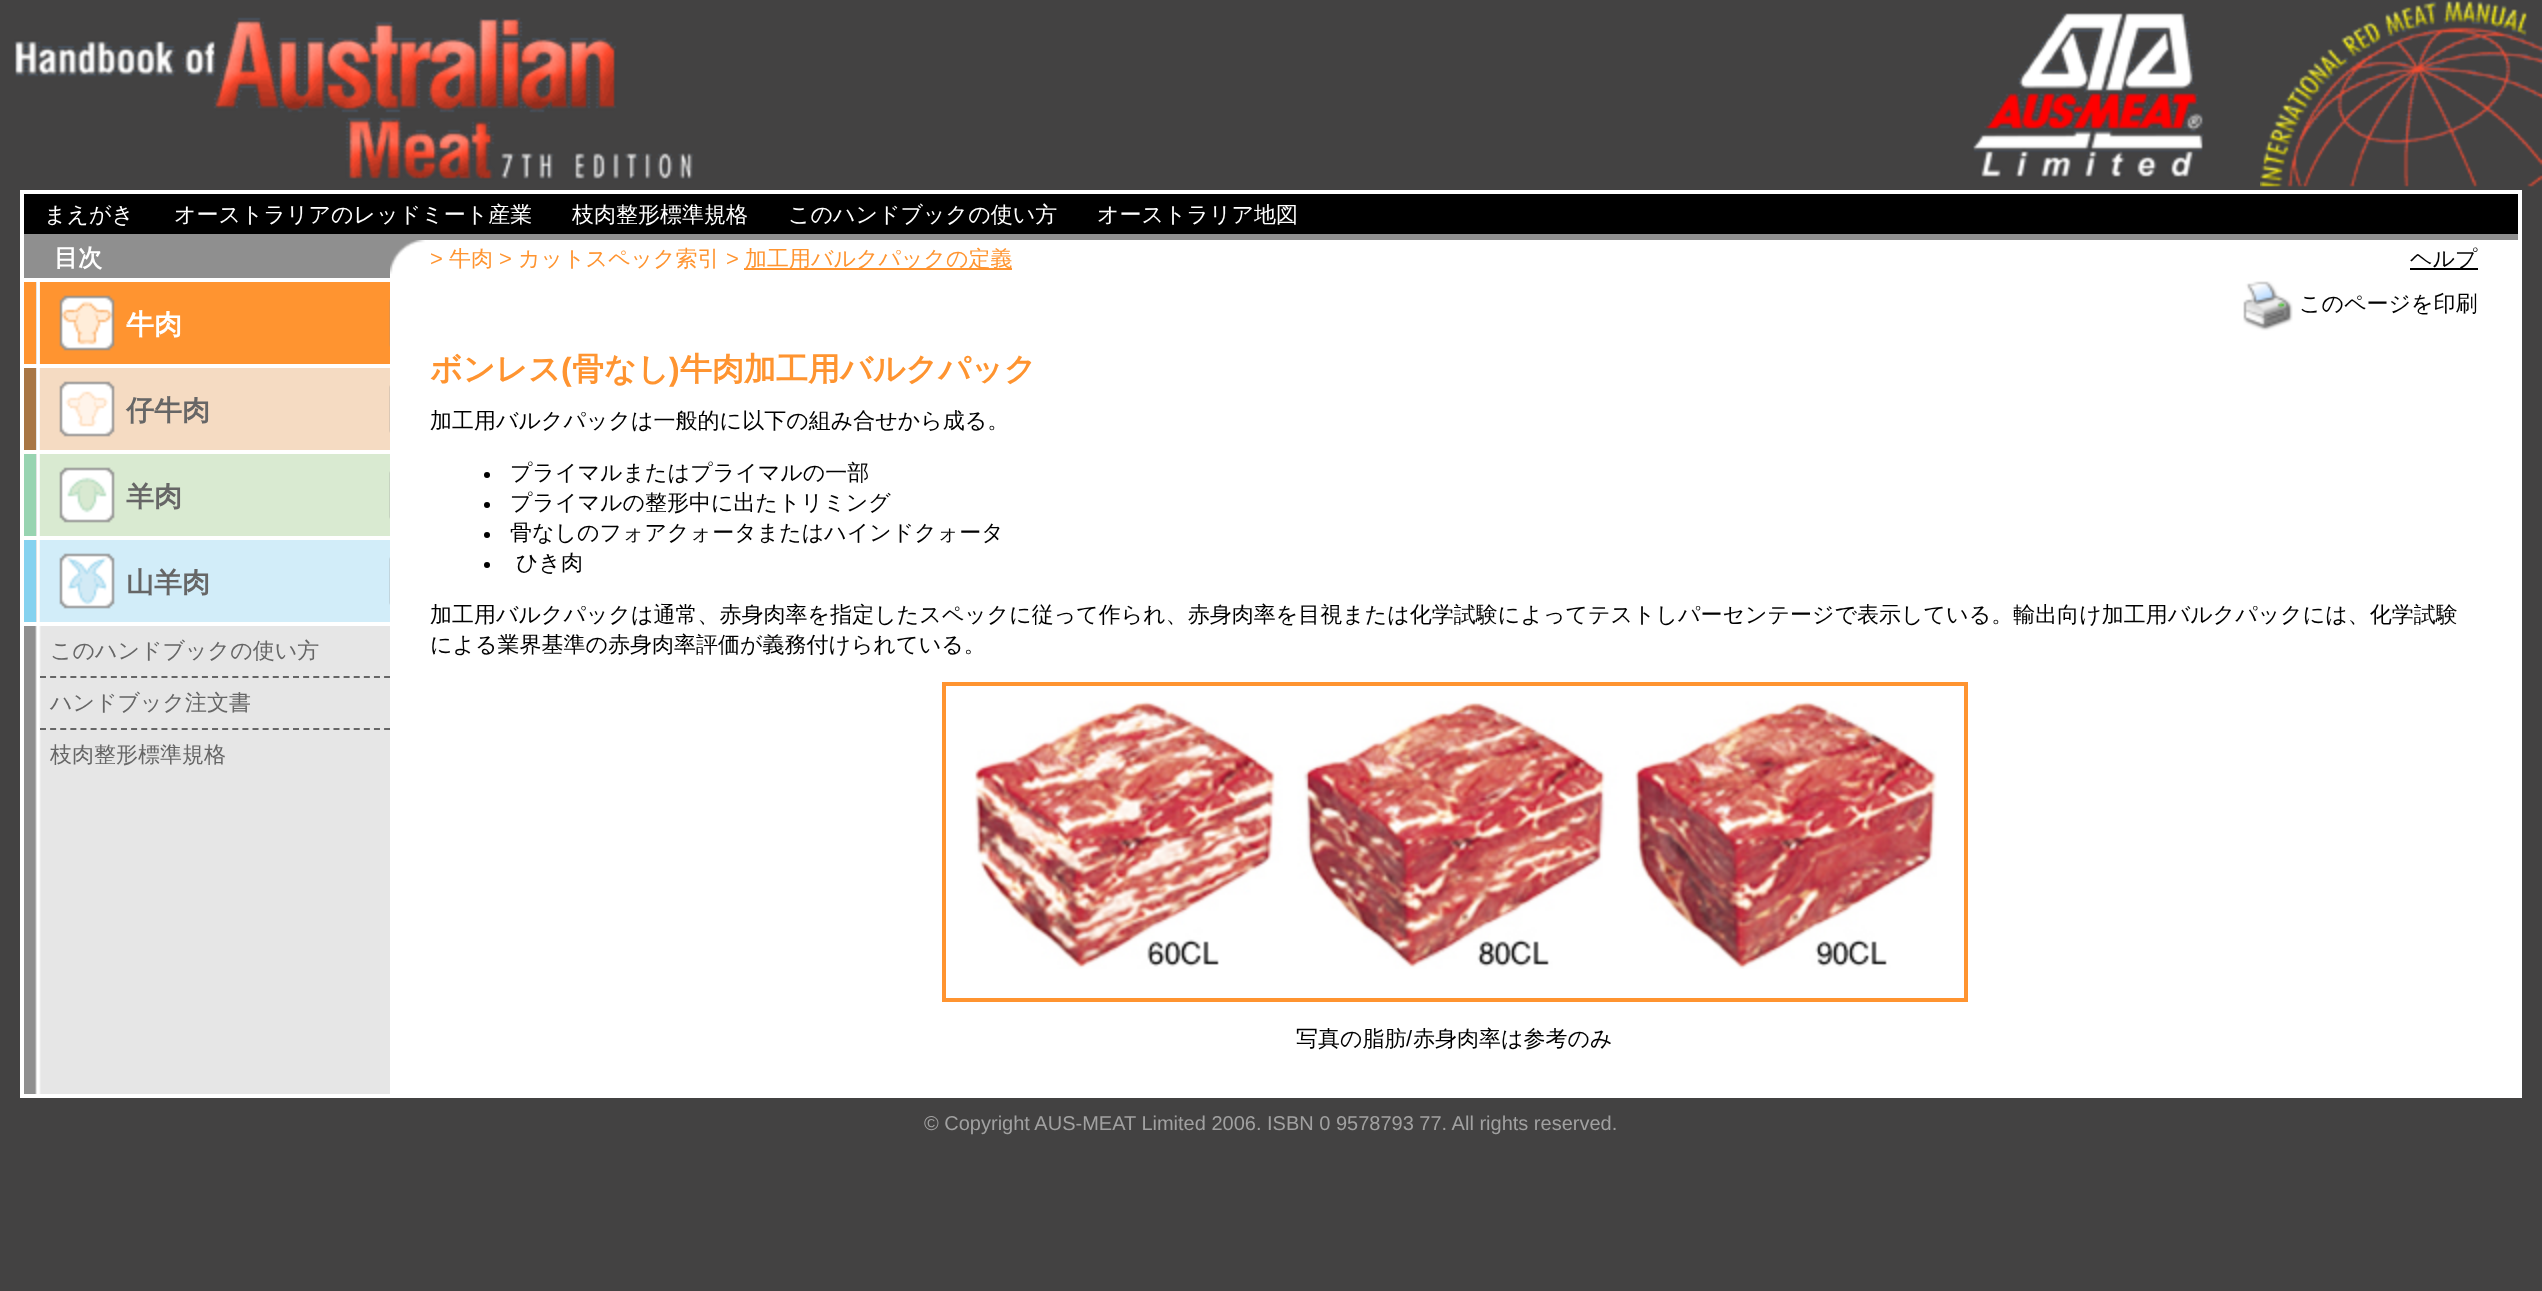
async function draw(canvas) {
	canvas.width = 2542;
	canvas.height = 1291;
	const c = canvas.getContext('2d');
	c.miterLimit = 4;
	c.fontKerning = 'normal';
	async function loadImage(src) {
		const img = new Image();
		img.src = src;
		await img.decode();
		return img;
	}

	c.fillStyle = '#434242';
	c.fillRect(0, 0, 2542, 1291);
	c.drawImage(await loadImage('img1.png'), 14, 17, 680, 163);
	c.drawImage(await loadImage('img2.png'), 1972, 13, 232, 164);
	c.drawImage(await loadImage('img3.png'), 2260, 1, 282, 186);
	c.fillStyle = '#fff';
	c.fillRect(20, 190, 2502, 908);
	c.fillStyle = '#000';
	c.fillRect(24, 194, 2494, 40);
	c.font = '500 22px WenQuanYi Zen Hei';
	c.fillStyle = '#fff';
	for (const [text, x, y] of [
		['まえがき', 44, 222],
		['オーストラリアのレッドミート産業', 174, 222],
		['枝肉整形標準規格', 572, 222],
		['このハンドブックの使い方', 788, 222],
		['オーストラリア地図', 1097, 222],
	]) {
		c.fillText(text, x, y);
	}
	c.fillStyle = '#8f8f8f';
	c.fillRect(24, 234, 2494, 6);
	c.fillRect(24, 240, 366, 38);
	c.font = 'bold 24px WenQuanYi Zen Hei';
	c.fillStyle = '#fff';
	c.fillText('目次', 54, 266);
	c.drawImage(await loadImage('img4.png'), 390, 240, 35, 34);
	c.font = '22px Liberation Sans';
	c.fillStyle = '#ff9430';
	c.fillText('>', 430, 266);
	c.font = '500 22px WenQuanYi Zen Hei';
	c.fillText('牛肉', 449, 266);
	c.font = '22px Liberation Sans';
	c.fillText('>', 499, 266);
	c.font = '500 22px WenQuanYi Zen Hei';
	c.fillText('カットスペック索引', 518, 266);
	c.font = '22px Liberation Sans';
	c.fillText('>', 726, 266);
	c.fillRect(744, 268, 268, 2);
	c.font = '500 22px WenQuanYi Zen Hei';
	c.fillText('加工用バルクパックの定義', 745, 266);
	c.fillStyle = '#000';
	c.fillRect(2410, 268, 68, 2);
	c.fillText('ヘルプ', 2410, 266);
	c.drawImage(await loadImage('img5.png'), 24, 282, 366, 812);
	c.fillStyle = '#ff9430';
	c.fillRect(24, 282, 12, 82);
	c.fillRect(40, 282, 350, 82);
	c.drawImage(await loadImage('img6.png'), 59, 295, 331, 56);
	c.font = 'bold 28px WenQuanYi Zen Hei';
	c.fillStyle = '#fff';
	c.fillText('牛肉', 126, 334);
	for (const [x, y, w, h, color] of [
		[24, 364, 366, 4, '#fff'],
		[24, 368, 12, 82, '#a87644'],
		[40, 368, 350, 82, '#f5dbc2'],
	]) {
		c.fillStyle = color;
		c.fillRect(x, y, w, h);
	}
	c.drawImage(await loadImage('img7.png'), 59, 381, 331, 56);
	c.fillStyle = '#666';
	c.fillText('仔牛肉', 126, 420);
	for (const [x, y, w, h, color] of [
		[24, 450, 366, 4, '#fff'],
		[24, 454, 12, 82, '#98d4b1'],
		[40, 454, 350, 82, '#d9ead1'],
	]) {
		c.fillStyle = color;
		c.fillRect(x, y, w, h);
	}
	c.drawImage(await loadImage('img8.png'), 59, 467, 331, 56);
	c.fillStyle = '#666';
	c.fillText('羊肉', 126, 506);
	for (const [x, y, w, h, color] of [
		[24, 536, 366, 4, '#fff'],
		[24, 540, 12, 82, '#85d2ef'],
		[40, 540, 350, 82, '#d2edf9'],
	]) {
		c.fillStyle = color;
		c.fillRect(x, y, w, h);
	}
	c.drawImage(await loadImage('img9.png'), 59, 553, 331, 56);
	c.fillStyle = '#666';
	c.fillText('山羊肉', 126, 592);
	c.fillStyle = '#fff';
	c.fillRect(24, 622, 366, 4);
	c.beginPath();
	c.moveTo(40, 677);
	c.lineTo(390, 677);
	c.strokeStyle = '#666';
	c.lineWidth = 2;
	c.setLineDash([6, 4.12]);
	c.stroke();
	c.font = '500 22px WenQuanYi Zen Hei';
	c.fillStyle = '#666';
	c.fillText('このハンドブックの使い方', 50, 658);
	c.beginPath();
	c.moveTo(40, 729);
	c.lineTo(390, 729);
	c.stroke();
	c.fillText('ハンドブック注文書', 50, 710);
	c.fillText('枝肉整形標準規格', 50, 762);
	c.drawImage(await loadImage('img10.png'), 2243, 281, 50, 50);
	c.fillStyle = '#000';
	c.fillText('このページを印刷', 2299, 311);
	c.font = 'bold 32px WenQuanYi Zen Hei';
	c.fillStyle = '#ff9430';
	c.fillText('ボンレス', 430, 380);
	c.font = 'bold 32px Liberation Sans';
	c.fillText('(', 561, 380);
	c.font = 'bold 32px WenQuanYi Zen Hei';
	c.fillText('骨なし', 572, 380);
	c.font = 'bold 32px Liberation Sans';
	c.fillText(')', 669, 380);
	c.font = 'bold 32px WenQuanYi Zen Hei';
	c.fillText('牛肉加工用バルクパック', 680, 380);
	c.font = '500 22px WenQuanYi Zen Hei';
	c.fillStyle = '#000';
	c.fillText('加工用バルクパックは一般的に以下の組み合せから成る。', 430, 428);
	c.beginPath();
	c.arc(487, 475, 3, 0, 2 * Math.PI);
	c.fill();
	c.fillText('プライマルまたはプライマルの一部', 510, 480);
	c.beginPath();
	c.arc(487, 505, 3, 0, 2 * Math.PI);
	c.fill();
	c.fillText('プライマルの整形中に出たトリミング', 510, 510);
	c.beginPath();
	c.arc(487, 535, 3, 0, 2 * Math.PI);
	c.fill();
	c.fillText('骨なしのフォアクォータまたはハインドクォータ', 510, 540);
	c.beginPath();
	c.arc(487, 565, 3, 0, 2 * Math.PI);
	c.fill();
	for (const [text, x, y] of [
		['ひき肉', 516, 570],
		['加工用バルクパックは通常、赤身肉率を指定したスペックに従って作られ、赤身肉率を目視または化学試験によってテストしパーセンテージで表示している。輸出向け加工用バルクパックには、化学試験', 430, 622],
		['による業界基準の赤身肉率評価が義務付けられている。', 430, 652],
	]) {
		c.fillText(text, x, y);
	}
	c.strokeStyle = '#ff9430';
	c.lineWidth = 4;
	c.setLineDash([]);
	c.strokeRect(944, 684, 1022, 316);
	c.drawImage(await loadImage('img11.png'), 974, 701, 963, 268);
	c.fillText('写真の脂肪', 1296, 1046);
	c.font = '22px Liberation Sans';
	c.fillText('/', 1406, 1046);
	c.font = '500 22px WenQuanYi Zen Hei';
	c.fillText('赤身肉率は参考のみ', 1413, 1046);
	c.font = '20px Liberation Sans';
	c.fillStyle = '#a1a1a1';
	c.fillText('© Copyright AUS-MEAT Limited 2006. ISBN 0 9578793 77. All rights reserved.', 924, 1130);
}

draw(document.querySelector('canvas'));
